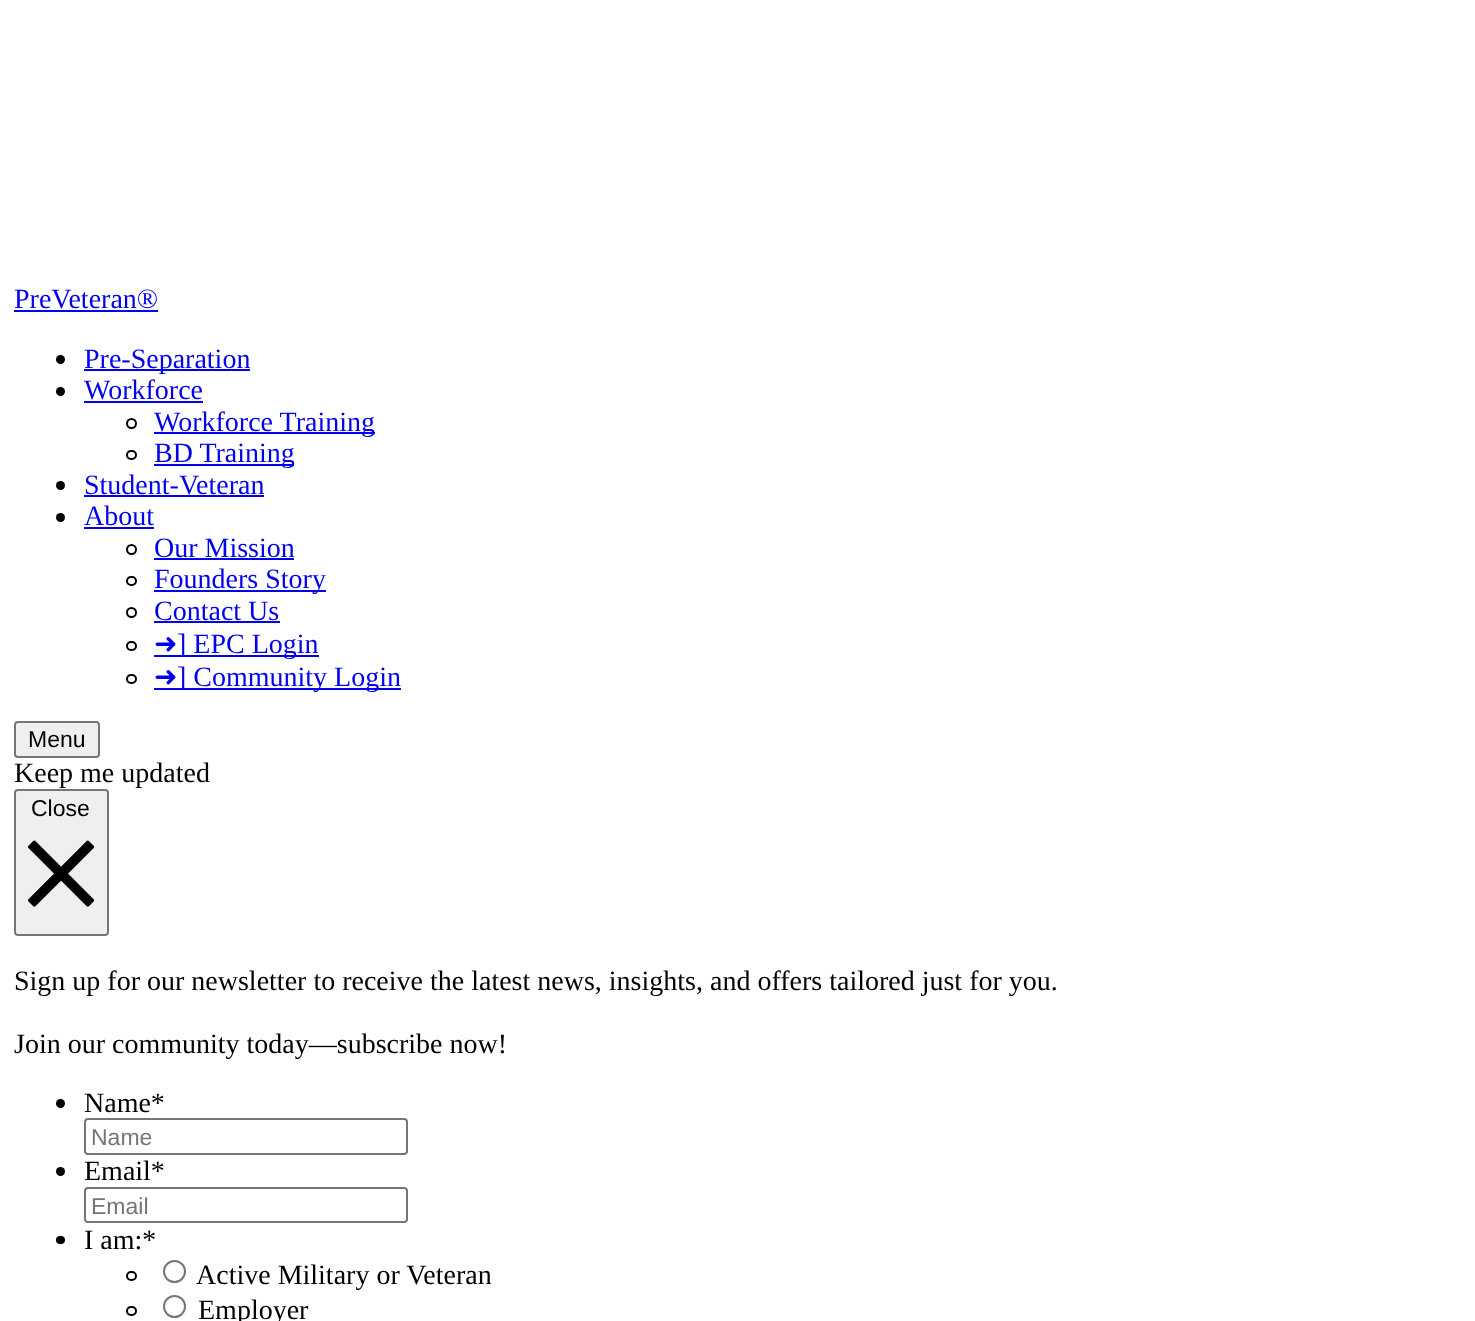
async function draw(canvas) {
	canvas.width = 1475;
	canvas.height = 1321;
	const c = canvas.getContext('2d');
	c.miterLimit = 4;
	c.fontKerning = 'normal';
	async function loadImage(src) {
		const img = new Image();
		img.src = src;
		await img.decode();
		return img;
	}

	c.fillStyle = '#fff';
	c.fillRect(0, 0, 1475, 1321);
	c.font = '28px Liberation Serif';
	c.fillStyle = '#00e';
	c.fillText('PreVeteran®', 14, 308);
	c.fillRect(14, 310, 144, 2);
	c.fillStyle = '#000';
	c.beginPath();
	c.arc(60.5, 359.5, 4.5, 0, 2 * Math.PI);
	c.fill();
	c.fillStyle = '#00e';
	c.fillRect(84, 369, 166, 2);
	c.fillText('Pre-Separation', 84, 368);
	c.fillStyle = '#000';
	c.beginPath();
	c.arc(60.5, 391.5, 4.5, 0, 2 * Math.PI);
	c.fill();
	c.fillStyle = '#00e';
	c.fillText('Workforce', 84, 399);
	c.fillRect(84, 401, 119, 2);
	c.beginPath();
	c.arc(131.5, 423.5, 4.5, 0, 2 * Math.PI);
	c.strokeStyle = '#000';
	c.lineWidth = 2;
	c.stroke();
	c.fillRect(154, 432, 221, 2);
	c.fillText('Workforce Training', 154, 431);
	c.beginPath();
	c.roundRect(127, 451, 9, 8, 4);
	c.stroke();
	c.fillRect(154, 464, 140, 2);
	c.fillText('BD Training', 154, 462);
	c.fillStyle = '#000';
	c.beginPath();
	c.arc(60.5, 485.5, 4.5, 0, 2 * Math.PI);
	c.fill();
	c.fillStyle = '#00e';
	c.fillText('Student-Veteran', 84, 494);
	c.fillRect(84, 495, 180, 2);
	c.fillStyle = '#000';
	c.beginPath();
	c.arc(60.5, 517.5, 4.5, 0, 2 * Math.PI);
	c.fill();
	c.fillStyle = '#00e';
	c.fillText('About', 84, 525);
	c.fillRect(84, 527, 70, 2);
	c.beginPath();
	c.arc(131.5, 549.5, 4.5, 0, 2 * Math.PI);
	c.stroke();
	c.fillText('Our Mission', 154, 557);
	c.fillRect(154, 558, 140, 2);
	c.beginPath();
	c.roundRect(127, 577, 9, 8, 4);
	c.stroke();
	c.fillRect(154, 590, 172, 2);
	c.fillText('Founders Story', 154, 588);
	c.beginPath();
	c.arc(131.5, 612.5, 4.5, 0, 2 * Math.PI);
	c.stroke();
	c.fillText('Contact Us', 154, 620);
	c.fillRect(154, 621, 126, 2);
	c.beginPath();
	c.roundRect(127, 642, 9, 8, 4);
	c.stroke();
	c.font = '28px DejaVu Sans';
	c.fillText('➜', 154, 653);
	c.fillRect(154, 655, 165, 2);
	c.font = '28px Liberation Serif';
	c.fillText('] EPC Login', 177, 653);
	c.beginPath();
	c.roundRect(127, 675, 9, 8, 4);
	c.stroke();
	c.font = '28px DejaVu Sans';
	c.fillText('➜', 154, 686);
	c.fillRect(154, 688, 247, 2);
	c.font = '28px Liberation Serif';
	c.fillText('] Community Login', 177, 686);
	c.fillStyle = '#efefef';
	c.beginPath();
	c.roundRect(15, 722, 84, 35, 3);
	c.fill();
	c.strokeStyle = '#767676';
	c.stroke();
	c.font = '23px Liberation Sans';
	c.fillStyle = '#000';
	c.fillText('Menu', 28, 747);
	c.font = '28px Liberation Serif';
	c.fillText('Keep me updated', 14, 782);
	c.fillStyle = '#efefef';
	c.beginPath();
	c.roundRect(15, 790, 93, 145, 3);
	c.fill();
	c.stroke();
	c.font = '23px Liberation Sans';
	c.fillStyle = '#000';
	c.fillText('Close', 31, 816);
	c.drawImage(await loadImage('img1.png'), 28, 840, 67, 67);
	c.font = '28px Liberation Serif';
	c.fillText('Sign up for our newsletter to receive the latest news, insights, and offers tailored just for you.', 14, 990);
	c.fillText('Join our community today—subscribe now!', 14, 1053);
	c.beginPath();
	c.arc(60.5, 1103.5, 4.5, 0, 2 * Math.PI);
	c.fill();
	c.fillText('Name*', 84, 1112);
	c.beginPath();
	c.roundRect(85, 1119, 322, 35, 3);
	c.stroke();
	c.font = '23px Liberation Sans';
	c.fillStyle = '#757575';
	c.fillText('Name', 91, 1145);
	c.fillStyle = '#000';
	c.beginPath();
	c.arc(60.5, 1171.5, 4.5, 0, 2 * Math.PI);
	c.fill();
	c.font = '28px Liberation Serif';
	c.fillText('Email*', 84, 1180);
	c.beginPath();
	c.roundRect(85, 1188, 322, 34, 3);
	c.stroke();
	c.font = '23px Liberation Sans';
	c.fillStyle = '#757575';
	c.fillText('Email', 91, 1214);
	c.fillStyle = '#000';
	c.beginPath();
	c.roundRect(56, 1236, 9, 8, 4);
	c.fill();
	c.font = '28px Liberation Serif';
	c.fillText('I am:*', 84, 1249);
	c.beginPath();
	c.roundRect(127, 1272, 9, 8, 4);
	c.strokeStyle = '#000';
	c.stroke();
	c.beginPath();
	c.arc(174.5, 1271.5, 10.5, 0, 2 * Math.PI);
	c.strokeStyle = '#767676';
	c.stroke();
	c.fillText('Active Military or Veteran', 196, 1284);
	c.beginPath();
	c.roundRect(127, 1307, 9, 8, 4);
	c.strokeStyle = '#000';
	c.stroke();
	c.beginPath();
	c.arc(174.5, 1306.5, 10.5, 0, 2 * Math.PI);
	c.strokeStyle = '#767676';
	c.stroke();
	c.fillText('Employer', 198, 1319);
}

draw(document.querySelector('canvas'));
